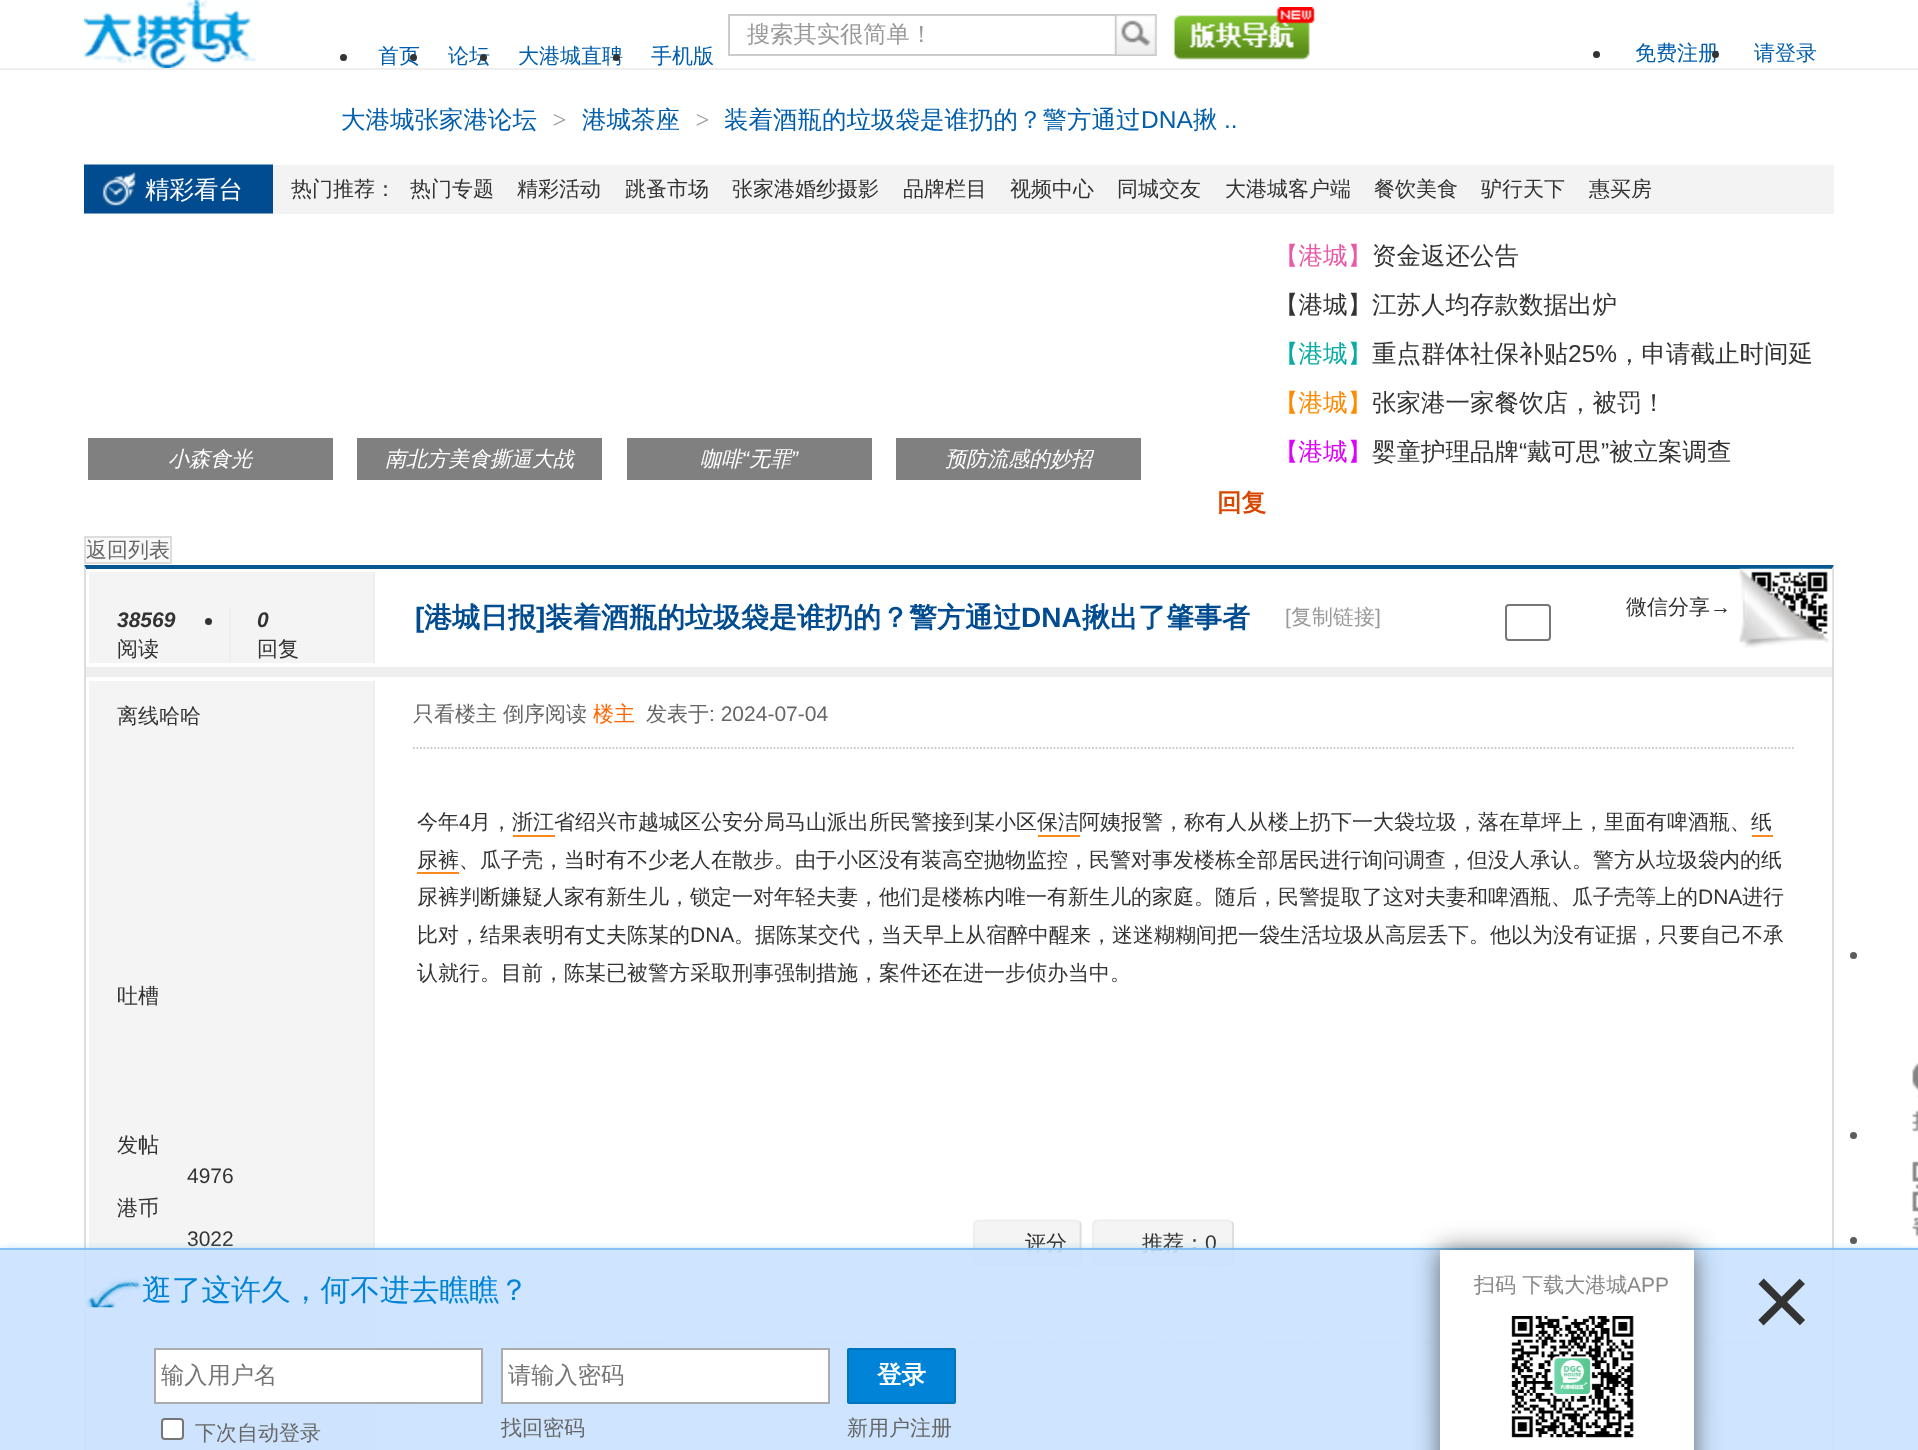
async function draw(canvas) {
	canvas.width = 1918;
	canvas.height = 1450;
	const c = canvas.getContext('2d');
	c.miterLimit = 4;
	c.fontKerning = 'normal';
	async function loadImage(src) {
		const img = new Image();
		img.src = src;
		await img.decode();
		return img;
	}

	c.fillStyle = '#fff';
	c.fillRect(0, 0, 1918, 1450);
	c.fillStyle = '#eee';
	c.fillRect(0, 68, 1918, 2);
	c.drawImage(await loadImage('img1.png'), 84, 0, 172, 68);
	for (const [x, y, w, h, color] of [
		[728, 14, 387, 2, '#ccc'],
		[728, 54, 387, 2, '#ccc'],
		[728, 14, 2, 42, '#ccc'],
	]) {
		c.fillStyle = color;
		c.fillRect(x, y, w, h);
	}
	c.font = '500 23.25px WenQuanYi Zen Hei';
	c.fillStyle = '#999';
	c.fillText('搜索其实很简单！', 747, 42);
	c.drawImage(await loadImage('img2.png'), 1114, 14, 43, 42);
	c.drawImage(await loadImage('img3.png'), 1173, 7, 142, 53);
	c.fillStyle = '#333';
	c.beginPath();
	c.arc(343.5, 57.5, 3.5, 0, 2 * Math.PI);
	c.fill();
	c.font = '500 21px WenQuanYi Zen Hei';
	c.fillStyle = '#005eac';
	c.fillText('首页', 378, 63);
	c.fillStyle = '#333';
	c.beginPath();
	c.arc(413.5, 57.5, 3.5, 0, 2 * Math.PI);
	c.fill();
	c.fillStyle = '#005eac';
	c.fillText('论坛', 448, 63);
	c.fillStyle = '#333';
	c.beginPath();
	c.arc(483.5, 57.5, 3.5, 0, 2 * Math.PI);
	c.fill();
	c.fillStyle = '#005eac';
	c.fillText('大港城直聘', 518, 63);
	c.fillStyle = '#333';
	c.beginPath();
	c.arc(616.5, 57.5, 3.5, 0, 2 * Math.PI);
	c.fill();
	c.fillStyle = '#005eac';
	c.fillText('手机版', 651, 63);
	c.fillStyle = '#333';
	c.beginPath();
	c.arc(1596.5, 54.5, 3.5, 0, 2 * Math.PI);
	c.fill();
	c.fillStyle = '#005eac';
	c.fillText('免费注册', 1635, 60);
	c.fillStyle = '#333';
	c.beginPath();
	c.arc(1715.5, 54.5, 3.5, 0, 2 * Math.PI);
	c.fill();
	c.fillStyle = '#005eac';
	c.fillText('请登录', 1754, 60);
	c.font = '500 24.5px WenQuanYi Zen Hei';
	c.fillText('大港城张家港论坛', 341, 128);
	c.font = 'italic 24.5px Liberation Serif';
	c.fillStyle = '#999';
	c.fillText('>', 551, 128);
	c.font = '500 24.5px WenQuanYi Zen Hei';
	c.fillStyle = '#005eac';
	c.fillText('港城茶座', 582, 128);
	c.font = 'italic 24.5px Liberation Serif';
	c.fillStyle = '#999';
	c.fillText('>', 694, 128);
	c.font = '500 24.5px WenQuanYi Zen Hei';
	c.fillStyle = '#005eac';
	c.fillText('装着酒瓶的垃圾袋是谁扔的？警方通过', 724, 128);
	c.font = '24.5px Liberation Sans';
	c.fillText('DNA', 1141, 128);
	c.font = '500 24.5px WenQuanYi Zen Hei';
	c.fillText('揪', 1193, 128);
	c.font = '24.5px Liberation Sans';
	c.fillText('..', 1224, 128);
	c.fillStyle = '#f3f3f3';
	c.fillRect(84, 165, 1750, 49);
	c.drawImage(await loadImage('img4.png'), 84, 164, 189, 50);
	c.font = '500 24.5px WenQuanYi Zen Hei';
	c.fillStyle = '#fff';
	c.fillText('精彩看台', 145, 198);
	c.font = '500 21px WenQuanYi Zen Hei';
	c.fillStyle = '#333';
	for (const [text, x, y] of [
		['热门推荐：', 291, 196],
		['热门专题', 410, 196],
		['精彩活动', 517, 196],
		['跳蚤市场', 625, 196],
		['张家港婚纱摄影', 732, 196],
		['品牌栏目', 903, 196],
		['视频中心', 1010, 196],
		['同城交友', 1117, 196],
		['大港城客户端', 1225, 196],
		['餐饮美食', 1374, 196],
		['驴行天下', 1481, 196],
		['惠买房', 1589, 196],
	]) {
		c.fillText(text, x, y);
	}
	c.fillStyle = '#808080';
	c.fillRect(88, 438, 245, 42);
	c.font = 'italic 500 21px WenQuanYi Zen Hei';
	c.fillStyle = '#fff';
	c.fillText('小森食光', 168, 466);
	c.fillStyle = '#808080';
	c.fillRect(357, 438, 245, 42);
	c.fillStyle = '#fff';
	c.fillText('南北方美食撕逼大战', 385, 466);
	c.fillStyle = '#808080';
	c.fillRect(627, 438, 245, 42);
	c.fillStyle = '#fff';
	c.fillText('咖啡', 700, 466);
	c.font = 'italic 21px Liberation Sans';
	c.fillText('“', 742, 466);
	c.font = 'italic 500 21px WenQuanYi Zen Hei';
	c.fillText('无罪', 749, 466);
	c.font = 'italic 21px Liberation Sans';
	c.fillText('”', 791, 466);
	c.fillStyle = '#808080';
	c.fillRect(896, 438, 245, 42);
	c.font = 'italic 500 21px WenQuanYi Zen Hei';
	c.fillStyle = '#fff';
	c.fillText('预防流感的妙招', 945, 466);
	c.font = '500 24.5px WenQuanYi Zen Hei';
	c.fillStyle = '#ea58a8';
	c.fillText('【港城】', 1274, 264);
	c.fillStyle = '#333';
	c.fillText('资金返还公告', 1372, 264);
	c.fillText('【港城】江苏人均存款数据出炉', 1274, 313);
	c.fillStyle = '#09aba5';
	c.fillText('【港城】', 1274, 362);
	c.fillStyle = '#333';
	c.fillText('重点群体社保补贴', 1372, 362);
	c.font = '24.5px Liberation Sans';
	c.fillText('25%', 1568, 362);
	c.font = '500 24.5px WenQuanYi Zen Hei';
	c.fillText('，申请截止时间延', 1617, 362);
	c.fillStyle = '#ff8a00';
	c.fillText('【港城】', 1274, 411);
	c.fillStyle = '#333';
	c.fillText('张家港一家餐饮店，被罚！', 1372, 411);
	c.fillStyle = '#de00ff';
	c.fillText('【港城】', 1274, 460);
	c.fillStyle = '#333';
	c.fillText('婴童护理品牌', 1372, 460);
	c.font = '24.5px Liberation Sans';
	c.fillText('“', 1519, 460);
	c.font = '500 24.5px WenQuanYi Zen Hei';
	c.fillText('戴可思', 1527, 460);
	c.font = '24.5px Liberation Sans';
	c.fillText('”', 1601, 460);
	c.font = '500 24.5px WenQuanYi Zen Hei';
	c.fillText('被立案调查', 1609, 460);
	c.font = 'bold 24.5px WenQuanYi Zen Hei';
	c.fillStyle = '#d74700';
	c.fillText('回复', 1217, 511);
	c.fillStyle = '#f9f9f9';
	c.beginPath();
	c.rect(85, 537, 86, 26);
	c.fill();
	c.strokeStyle = '#ddd';
	c.lineWidth = 2;
	c.stroke();
	c.font = '500 21px WenQuanYi Zen Hei';
	c.fillStyle = '#666';
	c.fillText('返回列表', 86, 557);
	c.fillStyle = '#065792';
	c.beginPath();
	c.moveTo(84, 565);
	c.lineTo(1834, 565);
	c.lineTo(1832, 569);
	c.lineTo(86, 569);
	c.closePath();
	c.fill();
	c.fillStyle = '#ddd';
	c.beginPath();
	c.moveTo(1834, 565);
	c.lineTo(1834, 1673);
	c.lineTo(1832, 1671);
	c.lineTo(1832, 569);
	c.closePath();
	c.fill();
	c.beginPath();
	c.moveTo(84, 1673);
	c.lineTo(84, 565);
	c.lineTo(86, 569);
	c.lineTo(86, 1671);
	c.closePath();
	c.fill();
	c.fillStyle = '#f4f4f4';
	c.fillRect(89, 572, 284, 91);
	c.fillStyle = '#eee';
	c.fillRect(373, 572, 2, 91);
	c.font = 'italic bold 21px Liberation Sans';
	c.fillStyle = '#333';
	c.fillText('38569', 117, 627);
	c.font = '500 21px WenQuanYi Zen Hei';
	c.fillText('阅读', 117, 656);
	c.fillStyle = '#eee';
	c.fillRect(229, 607, 2, 55);
	c.fillStyle = '#333';
	c.beginPath();
	c.arc(208.5, 621.5, 3.5, 0, 2 * Math.PI);
	c.fill();
	c.font = 'italic bold 21px Liberation Sans';
	c.fillText('0', 257, 627);
	c.font = '500 21px WenQuanYi Zen Hei';
	c.fillText('回复', 257, 656);
	c.font = 'bold 28px Liberation Sans';
	c.fillStyle = '#014c90';
	c.fillText('[', 415, 627);
	c.font = 'bold 28px WenQuanYi Zen Hei';
	c.fillText('港城日报', 424, 627);
	c.font = 'bold 28px Liberation Sans';
	c.fillText(']', 536, 627);
	c.font = 'bold 28px WenQuanYi Zen Hei';
	c.fillText('装着酒瓶的垃圾袋是谁扔的？警方通过', 545, 627);
	c.font = 'bold 28px Liberation Sans';
	c.fillText('DNA', 1021, 627);
	c.font = 'bold 28px WenQuanYi Zen Hei';
	c.fillText('揪出了肇事者', 1082, 627);
	c.font = '21px Liberation Sans';
	c.fillStyle = '#999';
	c.fillText('[', 1285, 624);
	c.font = '500 21px WenQuanYi Zen Hei';
	c.fillText('复制链接', 1291, 624);
	c.font = '21px Liberation Sans';
	c.fillText(']', 1375, 624);
	c.beginPath();
	c.roundRect(1506, 605, 44, 35, 3);
	c.strokeStyle = '#767676';
	c.stroke();
	c.font = '500 21px WenQuanYi Zen Hei';
	c.fillStyle = '#333';
	c.fillText('微信分享', 1626, 614);
	c.font = '21px Liberation Sans';
	c.fillText('→', 1710, 614);
	c.drawImage(await loadImage('img5.png'), 1739, 568, 94, 80);
	for (const [x, y, w, h, color] of [
		[86, 667, 1746, 10, '#eee'],
		[89, 681, 284, 769, '#f4f4f4'],
		[373, 681, 2, 769, '#eee'],
	]) {
		c.fillStyle = color;
		c.fillRect(x, y, w, h);
	}
	c.font = '500 21px WenQuanYi Zen Hei';
	c.fillStyle = '#333';
	for (const [text, x, y] of [
		['离线哈哈', 117, 723],
		['吐槽', 117, 1003],
		['发帖', 117, 1152],
	]) {
		c.fillText(text, x, y);
	}
	c.font = '21px Liberation Sans';
	c.fillText('4976', 187, 1183);
	c.font = '500 21px WenQuanYi Zen Hei';
	c.fillText('港币', 117, 1215);
	c.font = '21px Liberation Sans';
	c.fillText('3022', 187, 1246);
	c.beginPath();
	c.moveTo(413, 748);
	c.lineTo(1794, 748);
	c.strokeStyle = '#ccc';
	c.lineWidth = 1.8;
	c.setLineDash([1.75, 1.75]);
	c.stroke();
	c.font = '500 21px WenQuanYi Zen Hei';
	c.fillStyle = '#666';
	c.fillText('只看楼主', 413, 721);
	c.fillText('倒序阅读', 503, 721);
	c.fillStyle = '#f60';
	c.fillText('楼主', 593, 721);
	c.fillStyle = '#666';
	c.fillText('发表于', 646, 721);
	c.font = '21px Liberation Sans';
	c.fillText(': 2024-07-04', 709, 721);
	c.font = '500 21px WenQuanYi Zen Hei';
	c.fillStyle = '#333';
	c.fillText('今年', 417, 829);
	c.font = '21px Liberation Sans';
	c.fillText('4', 459, 829);
	c.font = '500 21px WenQuanYi Zen Hei';
	c.fillText('月，浙江省绍兴市越城区公安分局马山派出所民警接到某小区保洁阿姨报警，称有人从楼上扔下一大袋垃圾，落在草坪上，里面有啤酒瓶、纸', 470, 829);
	c.fillStyle = '#fa891b';
	c.fillRect(513, 835, 42, 2);
	c.fillRect(1038, 835, 42, 2);
	c.fillStyle = '#333';
	c.fillText('尿裤、瓜子壳，当时有不少老人在散步。由于小区没有装高空抛物监控，民警对事发楼栋全部居民进行询问调查，但没人承认。警方从垃圾袋内的纸', 417, 867);
	c.fillStyle = '#fa891b';
	c.fillRect(1752, 835, 21, 2);
	c.fillRect(417, 872, 42, 2);
	c.fillStyle = '#333';
	c.fillText('尿裤判断嫌疑人家有新生儿，锁定一对年轻夫妻，他们是楼栋内唯一有新生儿的家庭。随后，民警提取了这对夫妻和啤酒瓶、瓜子壳等上的', 417, 904);
	c.font = '21px Liberation Sans';
	c.fillText('DNA', 1698, 904);
	c.font = '500 21px WenQuanYi Zen Hei';
	c.fillText('进行', 1742, 904);
	c.fillText('比对，结果表明有丈夫陈某的', 417, 942);
	c.font = '21px Liberation Sans';
	c.fillText('DNA', 690, 942);
	c.font = '500 21px WenQuanYi Zen Hei';
	c.fillText('。据陈某交代，当天早上从宿醉中醒来，迷迷糊糊间把一袋生活垃圾从高层丢下。他以为没有证据，只要自己不承', 734, 942);
	c.fillText('认就行。目前，陈某已被警方采取刑事强制措施，案件还在进一步侦办当中。', 417, 980);
	c.fillStyle = '#f4f4f4';
	c.beginPath();
	c.roundRect(973, 1220, 109, 45, 5);
	c.fill();
	c.beginPath();
	c.moveTo(1079.5, 1222);
	c.bezierCurveTo(1081.5, 1224, 1080.5, 1228.5, 1080.5, 1231);
	c.lineTo(1080.5, 1242.5);
	c.bezierCurveTo(1080.5, 1267.5, 1085, 1264.5, 1060, 1264.5);
	c.lineTo(978, 1264.5);
	c.lineTo(975, 1263);
	c.strokeStyle = '#ddd';
	c.setLineDash([]);
	c.stroke();
	c.beginPath();
	c.moveTo(975, 1263);
	c.bezierCurveTo(973, 1261, 974, 1256.5, 974, 1254);
	c.lineTo(974, 1242.5);
	c.bezierCurveTo(974, 1217.5, 969.5, 1220.5, 994.5, 1220.5);
	c.lineTo(1076, 1220.5);
	c.lineTo(1079.5, 1222);
	c.strokeStyle = '#eee';
	c.stroke();
	c.fillStyle = '#333';
	c.fillText('评分', 1025, 1250);
	c.fillStyle = '#f4f4f4';
	c.beginPath();
	c.roundRect(1092, 1220, 142, 45, 5);
	c.fill();
	c.beginPath();
	c.moveTo(1231.5, 1222);
	c.bezierCurveTo(1234, 1224, 1233, 1228.5, 1233, 1231);
	c.lineTo(1233, 1242.5);
	c.bezierCurveTo(1233, 1269.5, 1236.5, 1264.5, 1206.5, 1264.5);
	c.lineTo(1097, 1264.5);
	c.lineTo(1094, 1263);
	c.strokeStyle = '#ddd';
	c.stroke();
	c.beginPath();
	c.moveTo(1094, 1263);
	c.bezierCurveTo(1092, 1261, 1093, 1256.5, 1093, 1254);
	c.lineTo(1093, 1242.5);
	c.bezierCurveTo(1093, 1215.5, 1089, 1220.5, 1119, 1220.5);
	c.lineTo(1228.5, 1220.5);
	c.lineTo(1231.5, 1222);
	c.strokeStyle = '#eee';
	c.stroke();
	c.fillStyle = '#333';
	c.fillText('推荐：', 1142, 1250);
	c.font = '21px Liberation Sans';
	c.fillText('0', 1205, 1250);
	c.beginPath();
	c.moveTo(413, 1343);
	c.lineTo(1794, 1343);
	c.strokeStyle = '#e4e4e4';
	c.setLineDash([5.25, 3.52]);
	c.stroke();
	c.beginPath();
	c.moveTo(413, 1408);
	c.lineTo(1794, 1408);
	c.stroke();
	c.fillStyle = '#5c5c5c';
	c.beginPath();
	c.arc(1853.5, 955.5, 3.5, 0, 2 * Math.PI);
	c.fill();
	c.drawImage(await loadImage('img6.png'), 1912, 1062, 6, 70);
	c.beginPath();
	c.arc(1853.5, 1135.5, 3.5, 0, 2 * Math.PI);
	c.fill();
	c.save();
	c.beginPath();
	c.rect(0, 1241, 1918, 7);
	c.clip();
	c.fillStyle = '#83c2f0';
	c.filter = 'blur(5px)';
	c.beginPath();
	c.rect(4, 1251, 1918, 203);
	c.fill();
	c.filter = 'none';
	c.restore();
	c.fillStyle = '#333333cc';
	c.beginPath();
	c.arc(1853.5, 1240.5, 3.5, 0, 2 * Math.PI);
	c.fill();
	c.drawImage(await loadImage('img7.png'), 1901, 1161, 17, 86);
	c.fillStyle = '#cae2ffe6';
	c.fillRect(0, 1250, 1918, 200);
	c.fillStyle = '#83c2f0';
	c.fillRect(0, 1248, 1918, 2);
	c.drawImage(await loadImage('img8.png'), 86, 1277, 57, 31);
	c.font = '500 29.75px WenQuanYi Zen Hei';
	c.fillStyle = '#0184d8';
	c.fillText('逛了这许久，何不进去瞧瞧？', 142, 1300);
	c.fillStyle = '#fff';
	c.beginPath();
	c.rect(155, 1349, 327, 54);
	c.fill();
	c.strokeStyle = '#ababab';
	c.lineWidth = 2;
	c.setLineDash([]);
	c.stroke();
	c.font = '500 23.25px WenQuanYi Zen Hei';
	c.fillStyle = '#757575';
	c.fillText('输入用户名', 161, 1383);
	c.fillStyle = '#fff';
	c.beginPath();
	c.roundRect(162, 1419, 21, 20, 3);
	c.fill();
	c.strokeStyle = '#767676';
	c.stroke();
	c.font = '500 21px WenQuanYi Zen Hei';
	c.fillStyle = '#666';
	c.fillText('下次自动登录', 195, 1440);
	c.fillStyle = '#fff';
	c.beginPath();
	c.rect(502, 1349, 327, 54);
	c.fill();
	c.strokeStyle = '#ababab';
	c.stroke();
	c.font = '500 23.25px WenQuanYi Zen Hei';
	c.fillStyle = '#757575';
	c.fillText('请输入密码', 508, 1383);
	c.save();
	c.beginPath();
	c.rect(501, 1348, 329, 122);
	c.clip();
	c.font = '500 21px WenQuanYi Zen Hei';
	c.fillStyle = '#666';
	c.fillText('找回密码', 501, 1435);
	c.restore();
	c.fillStyle = '#0184d8';
	c.beginPath();
	c.roundRect(848, 1349, 107, 54, 1);
	c.fill();
	c.strokeStyle = '#0173bb';
	c.stroke();
	c.font = 'bold 24.5px WenQuanYi Zen Hei';
	c.fillStyle = '#fff';
	c.fillText('登录', 877, 1383);
	c.font = '500 21px WenQuanYi Zen Hei';
	c.fillStyle = '#666';
	c.fillText('新用户注册', 847, 1435);
	c.fillStyle = '#0000008c';
	c.filter = 'blur(13px)';
	c.beginPath();
	c.rect(1440, 1250, 254, 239);
	c.fill();
	c.filter = 'none';
	c.fillStyle = '#fff';
	c.fillRect(1440, 1250, 254, 200);
	c.fillStyle = '#888';
	c.fillText('扫码 下载大港城', 1474, 1292);
	c.font = '21px Liberation Sans';
	c.fillText('APP', 1627, 1292);
	c.drawImage(await loadImage('img9.png'), 1511, 1316, 123, 122);
	c.font = '105px Liberation Sans';
	c.fillStyle = '#333';
	c.fillText('×', 1751, 1337);
}

draw(document.querySelector('canvas'));
